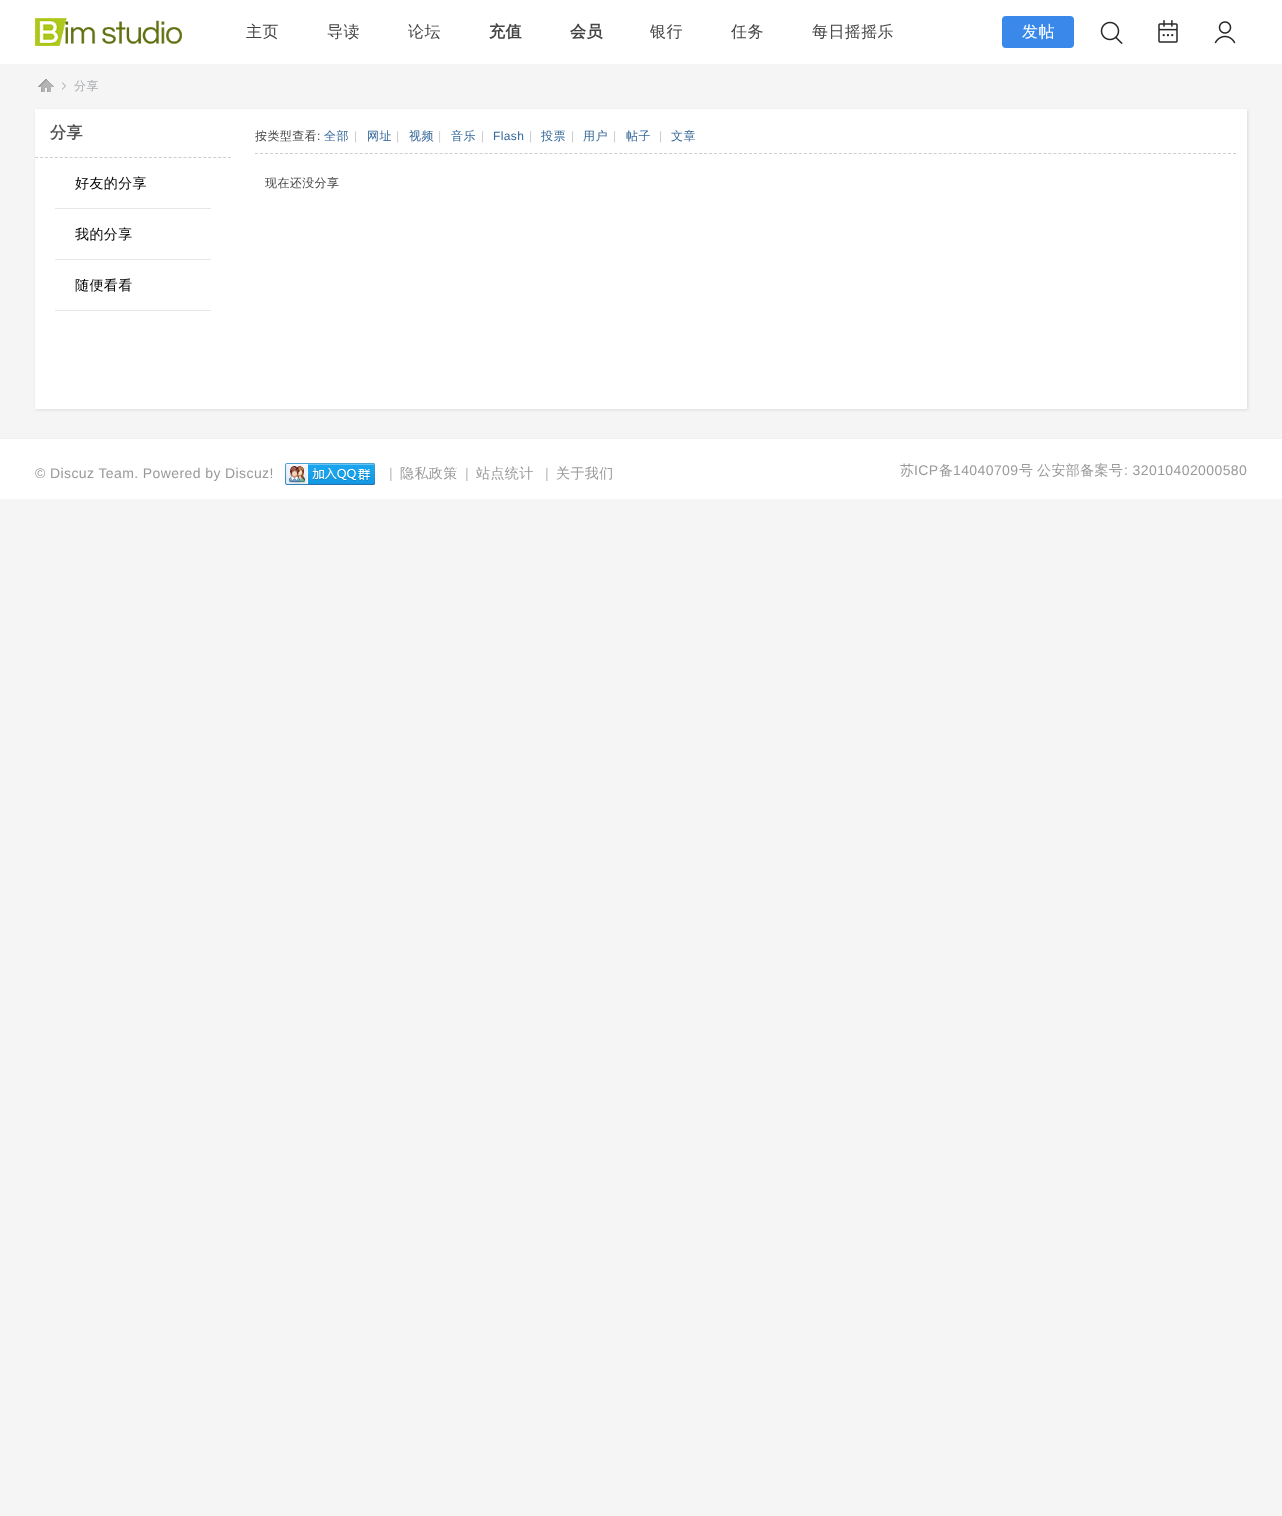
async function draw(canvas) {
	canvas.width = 1282;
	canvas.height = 1516;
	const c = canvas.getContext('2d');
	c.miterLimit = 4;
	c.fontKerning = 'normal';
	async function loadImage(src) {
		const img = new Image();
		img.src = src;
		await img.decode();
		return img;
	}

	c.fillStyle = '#f5f5f5';
	c.fillRect(0, 0, 1282, 1516);
	c.fillStyle = '#fff';
	c.fillRect(0, 0, 1282, 64);
	c.drawImage(await loadImage('img1.png'), 35, 18, 147, 28);
	c.letterSpacing = '0.4px';
	c.font = '500 16px WenQuanYi Zen Hei';
	c.fillStyle = '#444';
	for (const [text, x, y] of [
		['主页', 246, 37],
		['导读', 327, 37],
		['论坛', 408, 37],
	]) {
		c.fillText(text, x, y);
	}
	c.font = 'bold 16px WenQuanYi Zen Hei';
	c.fillText('充值', 489, 37);
	c.fillText('会员', 570, 37);
	c.font = '500 16px WenQuanYi Zen Hei';
	for (const [text, x, y] of [
		['银行', 650, 37],
		['任务', 731, 37],
		['每日摇摇乐', 812, 37],
	]) {
		c.fillText(text, x, y);
	}
	c.fillStyle = '#3a89ea';
	c.beginPath();
	c.roundRect(1002, 16, 72, 32, 4);
	c.fill();
	c.fillStyle = '#fff';
	c.fillText('发帖', 1022, 37);
	c.drawImage(await loadImage('img2.png'), 1100, 21, 23, 23);
	c.drawImage(await loadImage('img3.png'), 1158, 20, 20, 23);
	c.drawImage(await loadImage('img4.png'), 1214, 21, 22, 23);
	c.drawImage(await loadImage('img5.png'), 38, 79, 16, 13);
	c.drawImage(await loadImage('img6.png'), 62, 82, 4, 8);
	c.font = '500 12px WenQuanYi Zen Hei';
	c.fillStyle = '#aaaeb3';
	c.fillText('分享', 74, 90);
	c.fillStyle = '#0000001a';
	c.filter = 'blur(1.5px)';
	c.beginPath();
	c.rect(36, 110, 1212, 300);
	c.fill();
	c.filter = 'none';
	c.fillStyle = '#fff';
	c.fillRect(35, 109, 1212, 300);
	c.beginPath();
	c.moveTo(35, 157.5);
	c.lineTo(231, 157.5);
	c.strokeStyle = '#cdcdcd';
	c.setLineDash([3, 1.95]);
	c.stroke();
	c.font = 'bold 16px WenQuanYi Zen Hei';
	c.fillStyle = '#555';
	c.fillText('分享', 50, 138);
	c.fillStyle = '#e6e6e6';
	c.fillRect(55, 208, 156, 1);
	c.font = '500 14px WenQuanYi Zen Hei';
	c.fillStyle = '#000';
	c.fillText('好友的分享', 75, 188);
	c.fillStyle = '#e6e6e6';
	c.fillRect(55, 259, 156, 1);
	c.fillStyle = '#000';
	c.fillText('我的分享', 75, 239);
	c.fillStyle = '#e6e6e6';
	c.fillRect(55, 310, 156, 1);
	c.fillStyle = '#000';
	c.fillText('随便看看', 75, 290);
	c.beginPath();
	c.moveTo(255, 153.5);
	c.lineTo(1237, 153.5);
	c.setLineDash([3, 1.99]);
	c.stroke();
	c.font = '500 12px WenQuanYi Zen Hei';
	c.fillStyle = '#444';
	c.fillText('按类型查看', 255, 140);
	c.font = '12px Liberation Sans';
	c.fillText(':', 317, 140);
	c.font = '500 12px WenQuanYi Zen Hei';
	c.fillStyle = '#369';
	c.fillText('全部', 324, 140);
	c.font = '12px Liberation Sans';
	c.fillStyle = '#ccc';
	c.fillText('|', 354, 140);
	c.font = '500 12px WenQuanYi Zen Hei';
	c.fillStyle = '#369';
	c.fillText('网址', 367, 140);
	c.font = '12px Liberation Sans';
	c.fillStyle = '#ccc';
	c.fillText('|', 396, 140);
	c.font = '500 12px WenQuanYi Zen Hei';
	c.fillStyle = '#369';
	c.fillText('视频', 409, 140);
	c.font = '12px Liberation Sans';
	c.fillStyle = '#ccc';
	c.fillText('|', 438, 140);
	c.font = '500 12px WenQuanYi Zen Hei';
	c.fillStyle = '#369';
	c.fillText('音乐', 451, 140);
	c.font = '12px Liberation Sans';
	c.fillStyle = '#ccc';
	c.fillText('|', 481, 140);
	c.fillStyle = '#369';
	c.fillText('Flash', 493, 140);
	c.fillStyle = '#ccc';
	c.fillText('|', 529, 140);
	c.font = '500 12px WenQuanYi Zen Hei';
	c.fillStyle = '#369';
	c.fillText('投票', 541, 140);
	c.font = '12px Liberation Sans';
	c.fillStyle = '#ccc';
	c.fillText('|', 571, 140);
	c.font = '500 12px WenQuanYi Zen Hei';
	c.fillStyle = '#369';
	c.fillText('用户', 583, 140);
	c.font = '12px Liberation Sans';
	c.fillStyle = '#ccc';
	c.fillText('|', 613, 140);
	c.font = '500 12px WenQuanYi Zen Hei';
	c.fillStyle = '#369';
	c.fillText('帖子', 626, 140);
	c.font = '12px Liberation Sans';
	c.fillStyle = '#ccc';
	c.fillText('|', 659, 140);
	c.font = '500 12px WenQuanYi Zen Hei';
	c.fillStyle = '#369';
	c.fillText('文章', 671, 140);
	c.fillStyle = '#444';
	c.fillText('现在还没分享', 265, 187);
	c.fillStyle = '#fff';
	c.fillRect(0, 439, 1282, 60);
	c.fillStyle = '#f0f0f0';
	c.fillRect(0, 438, 1282, 1);
	c.font = '14px Liberation Sans';
	c.fillStyle = '#999';
	c.fillText('© Discuz Team. Powered by Discuz!', 35, 478);
	c.drawImage(await loadImage('img7.png'), 285, 463, 90, 22);
	c.fillStyle = '#bbb';
	c.fillText('|', 389, 478);
	c.font = '500 14px WenQuanYi Zen Hei';
	c.fillStyle = '#999';
	c.fillText('隐私政策', 400, 478);
	c.font = '14px Liberation Sans';
	c.fillStyle = '#bbb';
	c.fillText('|', 465, 478);
	c.font = '500 14px WenQuanYi Zen Hei';
	c.fillStyle = '#999';
	c.fillText('站点统计', 476, 478);
	c.font = '14px Liberation Sans';
	c.fillStyle = '#bbb';
	c.fillText('|', 545, 478);
	c.font = '500 14px WenQuanYi Zen Hei';
	c.fillStyle = '#999';
	c.fillText('关于我们', 556, 478);
	c.fillText('苏', 900, 475);
	c.font = '14px Liberation Sans';
	c.fillText('ICP', 914, 475);
	c.font = '500 14px WenQuanYi Zen Hei';
	c.fillText('备', 939, 475);
	c.font = '14px Liberation Sans';
	c.fillText('14040709', 953, 475);
	c.font = '500 14px WenQuanYi Zen Hei';
	c.fillText('号', 1019, 475);
	c.fillText('公安部备案号', 1037, 475);
	c.font = '14px Liberation Sans';
	c.fillText(': 32010402000580', 1124, 475);
}

draw(document.querySelector('canvas'));
